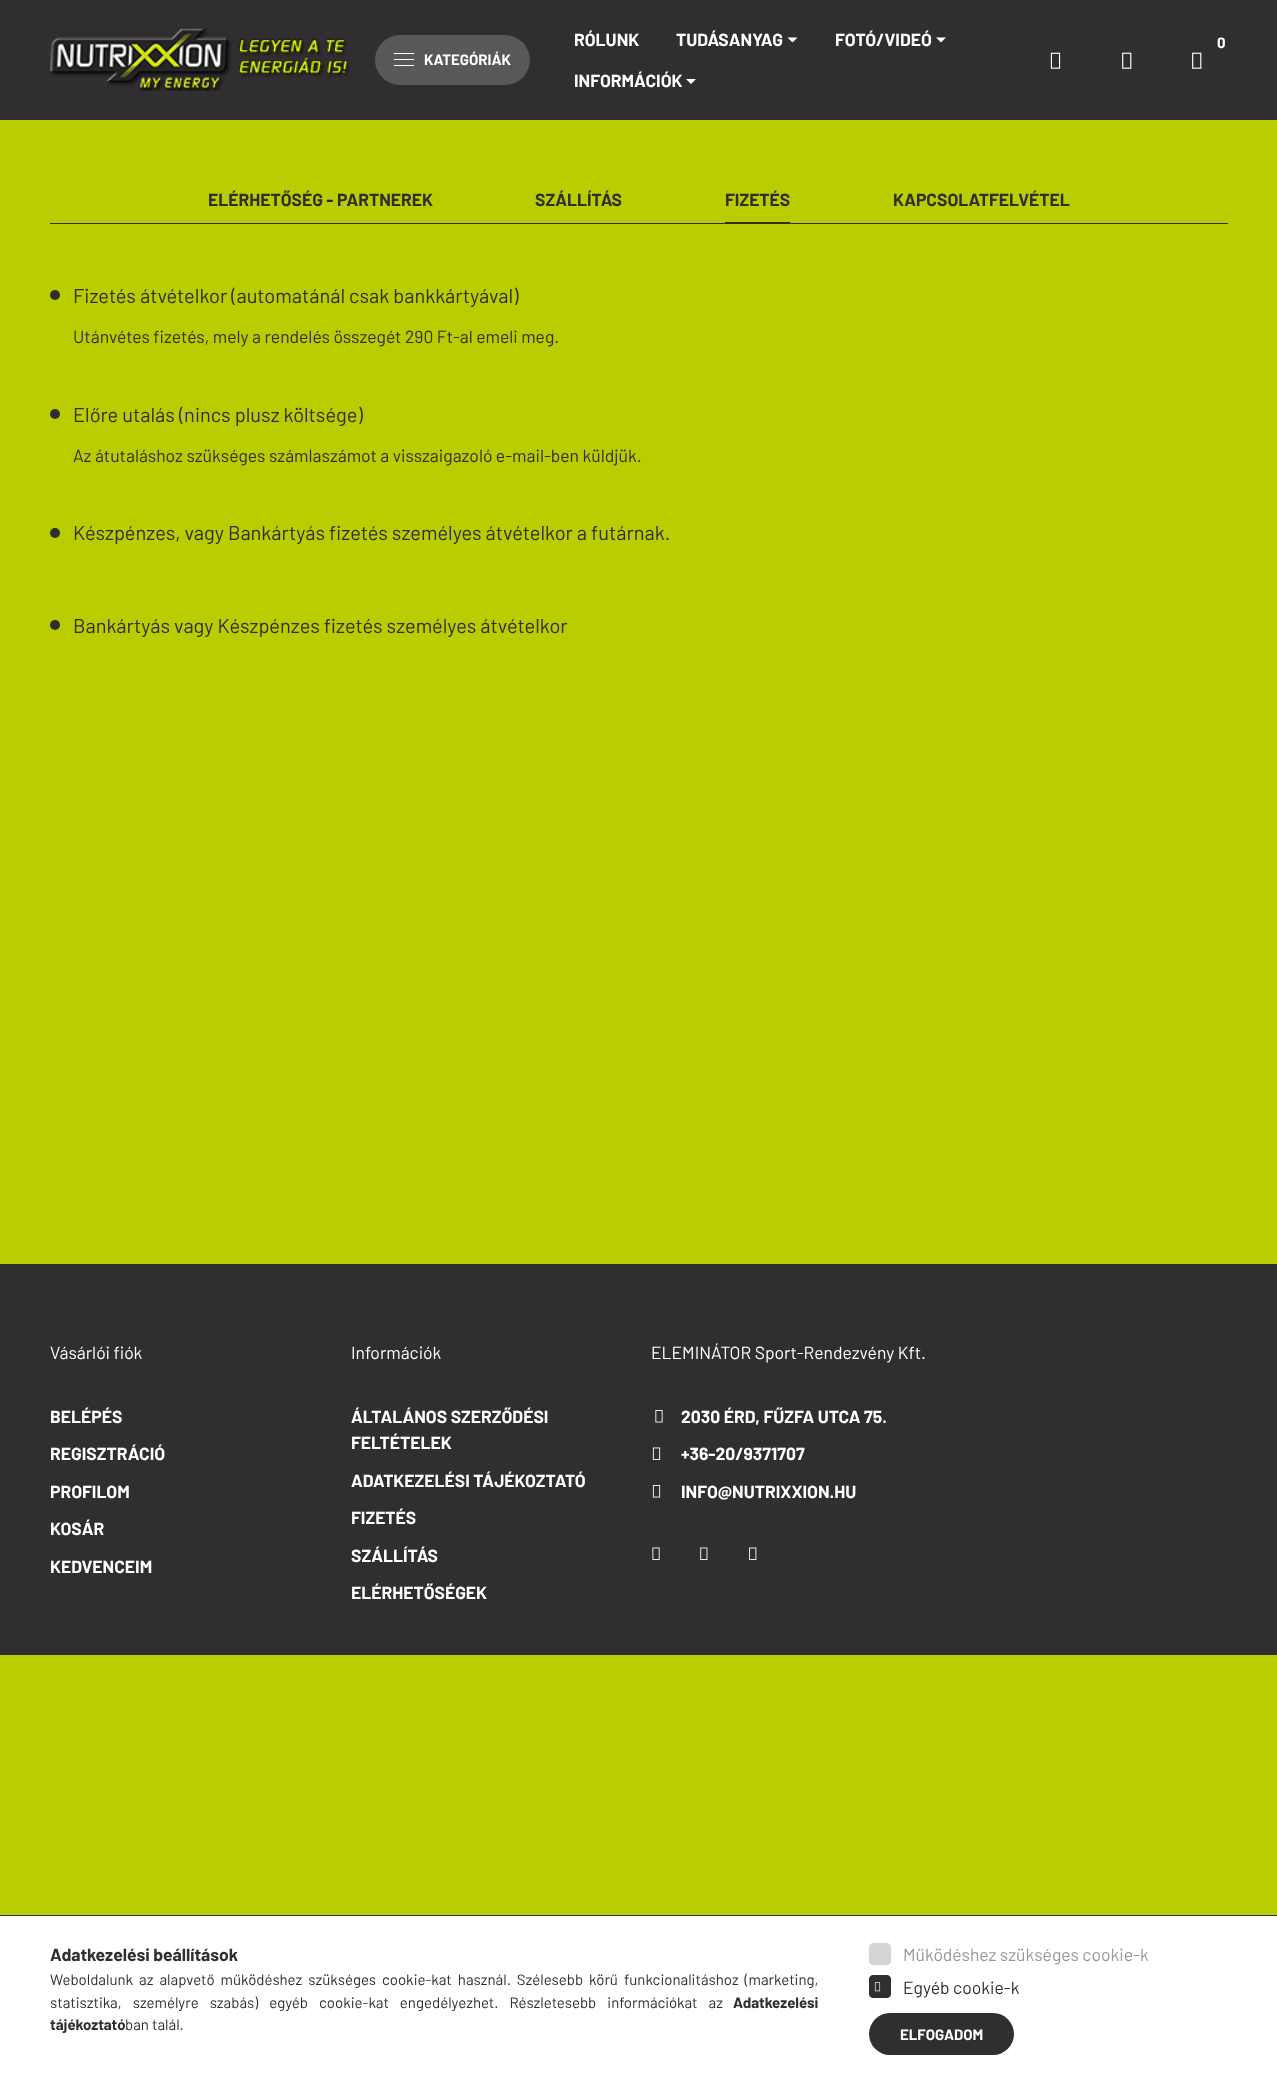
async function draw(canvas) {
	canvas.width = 1277;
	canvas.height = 2080;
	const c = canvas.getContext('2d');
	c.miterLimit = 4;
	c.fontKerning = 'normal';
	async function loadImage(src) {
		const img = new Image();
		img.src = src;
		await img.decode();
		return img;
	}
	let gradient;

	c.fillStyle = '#b9cd00';
	c.fillRect(0, 0, 1277, 2080);
	c.fillStyle = '#302e30';
	c.fillRect(0, 0, 1277, 120);
	c.drawImage(await loadImage('img1.png'), 50, 28, 300, 63);
	c.fillStyle = '#595859';
	c.beginPath();
	c.roundRect(375, 35, 155, 50, 25);
	c.fill();
	for (const [x, y, w, h, color] of [
		[394, 53, 20, 1, '#fff'],
		[394, 59, 20, 1, '#fff'],
		[394, 65, 20, 1, '#fff'],
	]) {
		c.fillStyle = color;
		c.fillRect(x, y, w, h);
	}
	c.font = 'bold 15px Barlow';
	c.fillText('KATEGÓRIÁK', 424, 65);
	c.font = 'bold 17.5px Barlow';
	c.fillText('RÓLUNK', 574, 46);
	c.fillText('TUDÁSANYAG', 676, 46);
	c.beginPath();
	c.moveTo(787.5, 37.5);
	c.lineTo(797.5, 37.5);
	c.lineTo(792.5, 42.5);
	c.closePath();
	c.fill();
	c.fillText('FOTÓ/VIDEÓ', 835, 46);
	c.beginPath();
	c.moveTo(936, 37.5);
	c.lineTo(946, 37.5);
	c.lineTo(941, 42.5);
	c.closePath();
	c.fill();
	c.fillText('INFORMÁCIÓK', 574, 87);
	c.beginPath();
	c.moveTo(686, 79);
	c.lineTo(696, 79);
	c.lineTo(691, 84);
	c.closePath();
	c.fill();
	c.font = 'bold 15px Barlow';
	c.fillText('0', 1217, 48);
	c.drawImage(await loadImage('img2.png'), 1192, 52, 10, 17);
	c.drawImage(await loadImage('img3.png'), 1050, 52, 11, 17);
	c.drawImage(await loadImage('img2.png'), 1122, 52, 10, 17);
	c.fillStyle = '#302e30';
	c.fillRect(50, 223, 1178, 1);
	c.font = 'bold 17.5px Barlow';
	c.fillText('ELÉRHETŐSÉG - PARTNEREK', 208, 206);
	c.fillText('SZÁLLÍTÁS', 535, 206);
	c.fillStyle = '#b9cd00';
	c.fillRect(724, 223, 67, 1);
	c.fillStyle = '#302e30';
	c.beginPath();
	c.moveTo(791, 224);
	c.lineTo(724, 224);
	c.lineTo(725, 222);
	c.lineTo(790, 222);
	c.closePath();
	c.fill();
	c.fillText('FIZETÉS', 725, 206);
	c.fillText('KAPCSOLATFELVÉTEL', 893, 206);
	c.beginPath();
	c.arc(55, 295, 5, 0, 2 * Math.PI);
	c.fill();
	c.font = '20px Barlow';
	c.fillText('Fizetés átvételkor (automatánál csak bankkártyával)', 73, 303);
	c.font = '17.5px Barlow';
	c.fillText('Utánvétes fizetés, mely a rendelés összegét 290 Ft-al emeli meg.', 73, 343);
	c.beginPath();
	c.arc(55, 414, 5, 0, 2 * Math.PI);
	c.fill();
	c.font = '20px Barlow';
	c.fillText('Előre utalás (nincs plusz költsége)', 73, 422);
	c.font = '17.5px Barlow';
	c.fillText('Az átutaláshoz szükséges számlaszámot a visszaigazoló e-mail-ben küldjük.', 73, 462);
	c.beginPath();
	c.arc(55, 533, 5, 0, 2 * Math.PI);
	c.fill();
	c.font = '20px Barlow';
	c.fillText('Készpénzes, vagy Bankártyás fizetés személyes átvételkor a futárnak.', 73, 540);
	c.beginPath();
	c.arc(55, 625, 5, 0, 2 * Math.PI);
	c.fill();
	c.fillText('Bankártyás vagy Készpénzes fizetés személyes átvételkor', 73, 633);
	c.fillRect(0, 1264, 1277, 391);
	c.font = '17.5px Barlow';
	c.fillStyle = '#fff';
	c.fillText('Vásárlói fiók', 50, 1359);
	c.font = 'bold 17.5px Barlow';
	for (const [text, x, y] of [
		['BELÉPÉS', 50, 1423],
		['REGISZTRÁCIÓ', 50, 1460],
		['PROFILOM', 50, 1498],
		['KOSÁR', 50, 1535],
		['KEDVENCEIM', 50, 1573],
	]) {
		c.fillText(text, x, y);
	}
	c.font = '17.5px Barlow';
	c.fillText('Információk', 351, 1359);
	c.font = 'bold 17.5px Barlow';
	for (const [text, x, y] of [
		['ÁLTALÁNOS SZERZŐDÉSI', 351, 1423],
		['FELTÉTELEK', 351, 1449],
		['ADATKEZELÉSI TÁJÉKOZTATÓ', 351, 1487],
		['FIZETÉS', 351, 1524],
		['SZÁLLÍTÁS', 351, 1562],
		['ELÉRHETŐSÉGEK', 351, 1599],
	]) {
		c.fillText(text, x, y);
	}
	c.font = '17.5px Barlow';
	c.fillText('ELEMINÁTOR Sport-Rendezvény Kft.', 651, 1359);
	c.drawImage(await loadImage('img4.png'), 655, 1410, 8, 13);
	c.font = 'bold 17.5px Barlow';
	c.fillText('2030 ÉRD, FŰZFA UTCA 75.', 681, 1423);
	c.drawImage(await loadImage('img5.png'), 652, 1447, 9, 13);
	c.fillText('+36-20/9371707', 681, 1460);
	c.drawImage(await loadImage('img6.png'), 652, 1485, 9, 13);
	c.fillText('INFO@NUTRIXXION.HU', 681, 1498);
	c.drawImage(await loadImage('img7.png'), 652, 1547, 8, 13);
	c.drawImage(await loadImage('img8.png'), 700, 1547, 8, 13);
	c.drawImage(await loadImage('img9.png'), 749, 1547, 8, 13);
	c.fillRect(0, 1916, 1277, 164);
	c.fillStyle = '#302e30';
	c.fillRect(0, 1915, 1277, 1);
	c.fillText('Adatkezelési beállítások', 50, 1961);
	c.wordSpacing = '3px';
	c.font = '15px Barlow';
	c.fillText('Weboldalunk az alapvető működéshez szükséges cookie-kat használ. Szélesebb körű funkcionalitáshoz (marketing,', 50, 1985);
	c.wordSpacing = '8px';
	c.fillText('statisztika, személyre szabás) egyéb cookie-kat engedélyezhet. Részletesebb információkat az', 50, 2008);
	c.wordSpacing = '0px';
	c.font = 'bold 15px Barlow';
	c.fillText('Adatkezelési', 733, 2008);
	c.fillText('tájékoztató', 50, 2030);
	c.font = '15px Barlow';
	c.fillText('ban talál.', 125, 2030);
	c.fillStyle = '#d5d5d5';
	c.beginPath();
	c.roundRect(869.5, 1943.5, 21, 21, 3.5);
	c.fill();
	c.strokeStyle = '#d5d5d5';
	c.stroke();
	c.font = '17.5px Barlow';
	c.fillStyle = '#989798';
	c.fillText('Működéshez szükséges cookie-k', 903, 1961);
	c.fillStyle = '#302e30';
	c.beginPath();
	c.roundRect(869.5, 1975.5, 21, 22, 3.5);
	c.fill();
	c.strokeStyle = '#302e30';
	c.stroke();
	c.drawImage(await loadImage('img10.png'), 874, 1982, 7, 10);
	c.fillText('Egyéb cookie-k', 903, 1994);
	gradient = c.createLinearGradient(869, 2034, 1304, 2034);
	gradient.addColorStop(0.33, '#302e30');
	gradient.addColorStop(0.67, '#b9cd00');
	c.fillStyle = gradient;
	c.beginPath();
	c.roundRect(869, 2013, 145, 42, 21);
	c.fill();
	c.font = 'bold 15px Barlow';
	c.fillStyle = '#fff';
	c.fillText('ELFOGADOM', 900, 2040);
}

draw(document.querySelector('canvas'));
